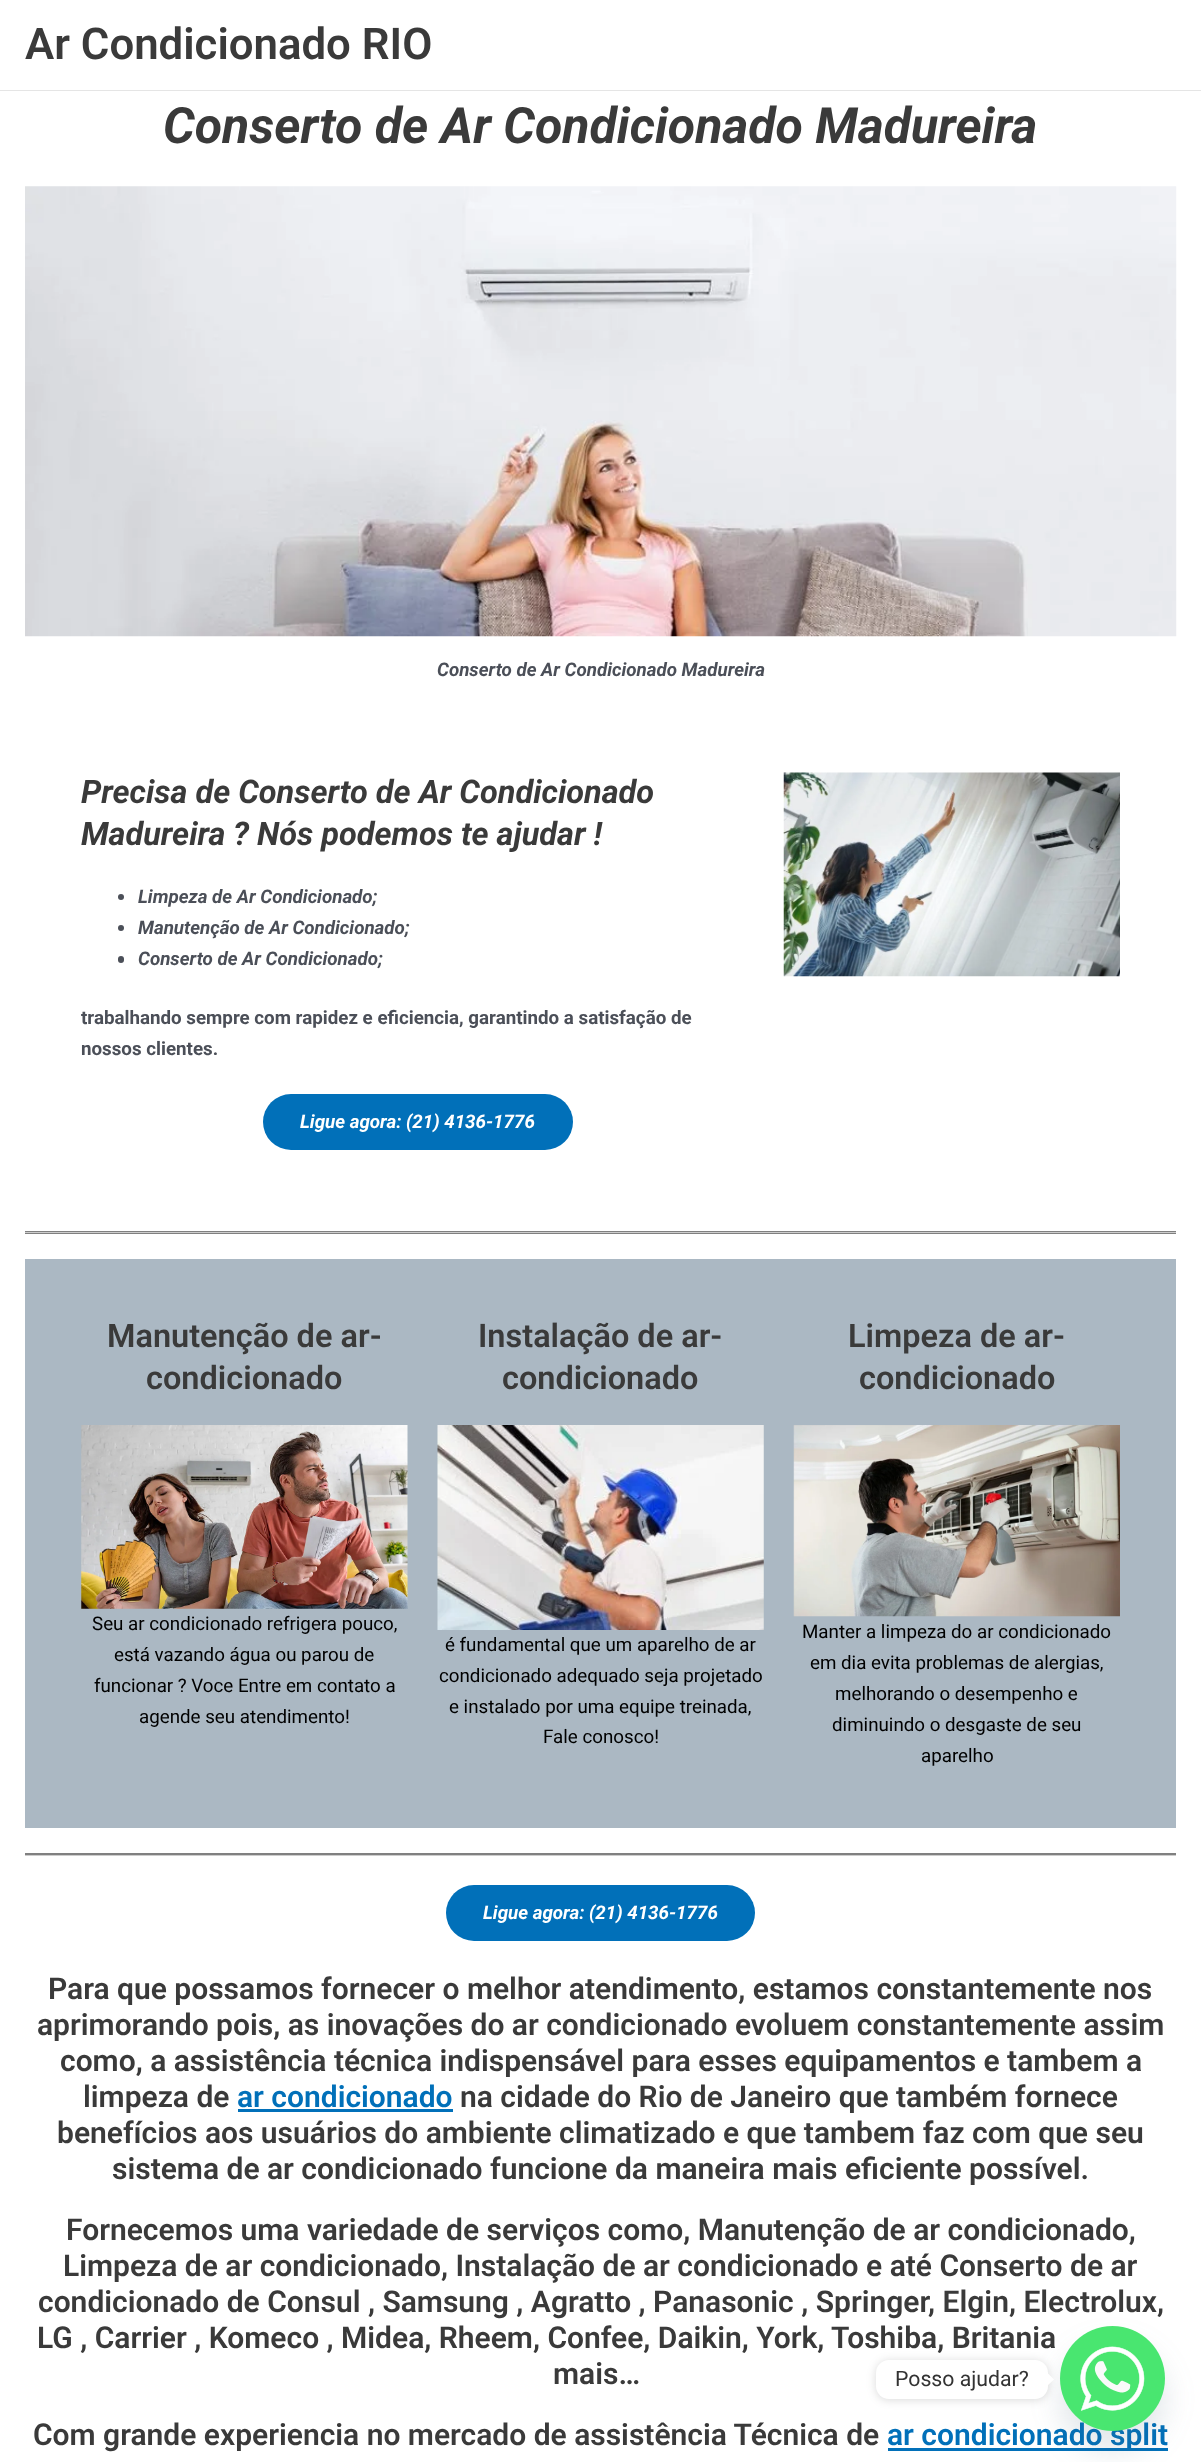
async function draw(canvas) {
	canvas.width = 1201;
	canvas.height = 2462;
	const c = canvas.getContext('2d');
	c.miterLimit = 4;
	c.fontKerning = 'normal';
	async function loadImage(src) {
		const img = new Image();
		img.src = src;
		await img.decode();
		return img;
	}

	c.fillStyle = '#fff';
	c.fillRect(0, 0, 1201, 2462);
	c.fillStyle = '#e5e5e5';
	c.fillRect(0, 90, 1201, 1);
	c.font = '600 43.75px Roboto';
	c.fillStyle = '#3a3a3a';
	c.fillText('Ar Condicionado RIO', 25, 59);
	c.font = 'italic bold 50px Roboto';
	c.fillText('Conserto de Ar Condicionado Madureira', 163, 143);
	c.drawImage(await loadImage('img1.png'), 25, 186, 1152, 451);
	c.font = 'italic bold 18.75px Roboto';
	c.fillStyle = '#4b4f58';
	c.fillText('Conserto de Ar Condicionado Madureira', 437, 676);
	c.font = 'italic bold 32.5px Roboto';
	c.fillStyle = '#3a3a3a';
	c.fillText('Precisa de Conserto de Ar Condicionado', 81, 803);
	c.fillText('Madureira ? Nós podemos te ajudar !', 81, 845);
	c.fillStyle = '#4b4f58';
	c.beginPath();
	c.arc(121, 897, 3, 0, 2 * Math.PI);
	c.fill();
	c.font = 'italic bold 18.75px Roboto';
	c.fillText('Limpeza de Ar Condicionado;', 138, 903);
	c.beginPath();
	c.arc(121, 928, 3, 0, 2 * Math.PI);
	c.fill();
	c.fillText('Manutenção de Ar Condicionado;', 138, 934);
	c.beginPath();
	c.roundRect(118, 956, 6, 7, 3);
	c.fill();
	c.fillText('Conserto de Ar Condicionado;', 138, 965);
	c.font = 'bold 18.75px Roboto';
	c.fillText('trabalhando sempre com rapidez e eficiencia, garantindo a satisfação de', 81, 1024);
	c.fillText('nossos clientes.', 81, 1055);
	c.fillStyle = '#0170b9';
	c.beginPath();
	c.roundRect(263, 1094, 310, 56, 28);
	c.fill();
	c.font = 'italic bold 18.75px Roboto';
	c.fillStyle = '#fff';
	c.fillText('Ligue agora: (21) 4136-1776', 300, 1128);
	c.drawImage(await loadImage('img2.png'), 783, 772, 337, 205);
	for (const [x, y, w, h, color] of [
		[25, 1232, 1151, 1, '#ccc'],
		[25, 1231, 1151, 1, '#808080'],
		[25, 1233, 1151, 1, '#808080'],
		[25, 1259, 1151, 569, '#abb8c3'],
	]) {
		c.fillStyle = color;
		c.fillRect(x, y, w, h);
	}
	c.font = '600 32.5px Roboto';
	c.fillStyle = '#3a3a3a';
	c.fillText('Manutenção de ar-', 107, 1347);
	c.fillText('condicionado', 146, 1389);
	c.drawImage(await loadImage('img3.png'), 81, 1425, 327, 184);
	c.font = '18.75px Roboto';
	c.fillStyle = '#000';
	for (const [text, x, y] of [
		['Seu ar condicionado refrigera pouco,', 92, 1630],
		['está vazando água ou parou de', 114, 1661],
		['funcionar ? Voce Entre em contato a', 94, 1692],
		['agende seu atendimento!', 139, 1723],
	]) {
		c.fillText(text, x, y);
	}
	c.font = '600 32.5px Roboto';
	c.fillStyle = '#3a3a3a';
	c.fillText('Instalação de ar-', 478, 1347);
	c.fillText('condicionado', 502, 1389);
	c.drawImage(await loadImage('img4.png'), 437, 1425, 327, 205);
	c.font = '18.75px Roboto';
	c.fillStyle = '#000';
	for (const [text, x, y] of [
		['é fundamental que um aparelho de ar', 445, 1651],
		['condicionado adequado seja projetado', 439, 1682],
		['e instalado por uma equipe treinada,', 449, 1713],
		['Fale conosco!', 543, 1743],
	]) {
		c.fillText(text, x, y);
	}
	c.font = '600 32.5px Roboto';
	c.fillStyle = '#3a3a3a';
	c.fillText('Limpeza de ar-', 848, 1347);
	c.fillText('condicionado', 859, 1389);
	c.drawImage(await loadImage('img5.png'), 793, 1425, 327, 192);
	c.font = '18.75px Roboto';
	c.fillStyle = '#000';
	for (const [text, x, y] of [
		['Manter a limpeza do ar condicionado', 802, 1638],
		['em dia evita problemas de alergias,', 810, 1669],
		['melhorando o desempenho e', 835, 1700],
		['diminuindo o desgaste de seu', 832, 1731],
		['aparelho', 921, 1762],
	]) {
		c.fillText(text, x, y);
	}
	c.fillStyle = '#ccc';
	c.fillRect(25, 1855, 1151, 1);
	c.fillStyle = '#808080';
	c.fillRect(25, 1853, 1151, 2);
	c.fillStyle = '#0170b9';
	c.beginPath();
	c.roundRect(446, 1885, 309, 56, 28);
	c.fill();
	c.font = 'italic bold 18.75px Roboto';
	c.fillStyle = '#fff';
	c.fillText('Ligue agora: (21) 4136-1776', 483, 1919);
	c.font = '600 30px Roboto';
	c.fillStyle = '#3a3a3a';
	for (const [text, x, y] of [
		['Para que possamos fornecer o melhor atendimento, estamos constantemente nos', 48, 1999],
		['aprimorando pois, as inovações do ar condicionado evoluem constantemente assim', 37, 2035],
		['como, a assistência técnica indispensável para esses equipamentos e tambem a', 60, 2071],
		['limpeza de', 83, 2107],
	]) {
		c.fillText(text, x, y);
	}
	c.fillStyle = '#0170b9';
	c.fillText('ar condicionado', 237, 2107);
	c.fillRect(238, 2109, 215, 3);
	c.fillStyle = '#3a3a3a';
	for (const [text, x, y] of [
		['na cidade do Rio de Janeiro que também fornece', 460, 2107],
		['benefícios aos usuários do ambiente climatizado e que tambem faz com que seu', 57, 2143],
		['sistema de ar condicionado funcione da maneira mais eficiente possível.', 112, 2179],
		['Fornecemos uma variedade de serviços como, Manutenção de ar condicionado,', 66, 2240],
		['Limpeza de ar condicionado, Instalação de ar condicionado e até Conserto de ar', 63, 2276],
		['condicionado de Consul , Samsung , Agratto , Panasonic , Springer, Elgin, Electrolux,', 38, 2312],
		['LG , Carrier , Komeco , Midea, Rheem, Confee, Daikin, York, Toshiba, Britania', 37, 2348],
		['mais…', 553, 2384],
		['Com grande experiencia no mercado de assistência Técnica de', 33, 2445],
	]) {
		c.fillText(text, x, y);
	}
	c.fillStyle = '#0170b9';
	c.fillRect(888, 2448, 280, 3);
	c.fillText('ar condicionado split', 887, 2445);
	c.fillStyle = '#49687e29';
	c.filter = 'blur(15px)';
	c.beginPath();
	c.roundRect(1060, 2346, 105, 105, 52.5);
	c.fill();
	c.filter = 'none';
	c.drawImage(await loadImage('img6.png'), 1060, 2326, 105, 105);
	c.fillStyle = '#00000026';
	c.filter = 'blur(5px)';
	c.beginPath();
	c.roundRect(876, 2361, 172, 39, 13);
	c.fill();
	c.filter = 'none';
	c.fillStyle = '#fff';
	c.beginPath();
	c.roundRect(876, 2360, 172, 39, 13);
	c.fill();
	c.font = '21.25px Roboto';
	c.fillStyle = '#333';
	c.fillText('Posso ajudar?', 895, 2386);
	c.fillStyle = '#fff';
	c.beginPath();
	c.moveTo(1047.5, 2385.5);
	c.lineTo(1047.5, 2373);
	c.lineTo(1054, 2379.5);
	c.closePath();
	c.fill();
}

draw(document.querySelector('canvas'));
